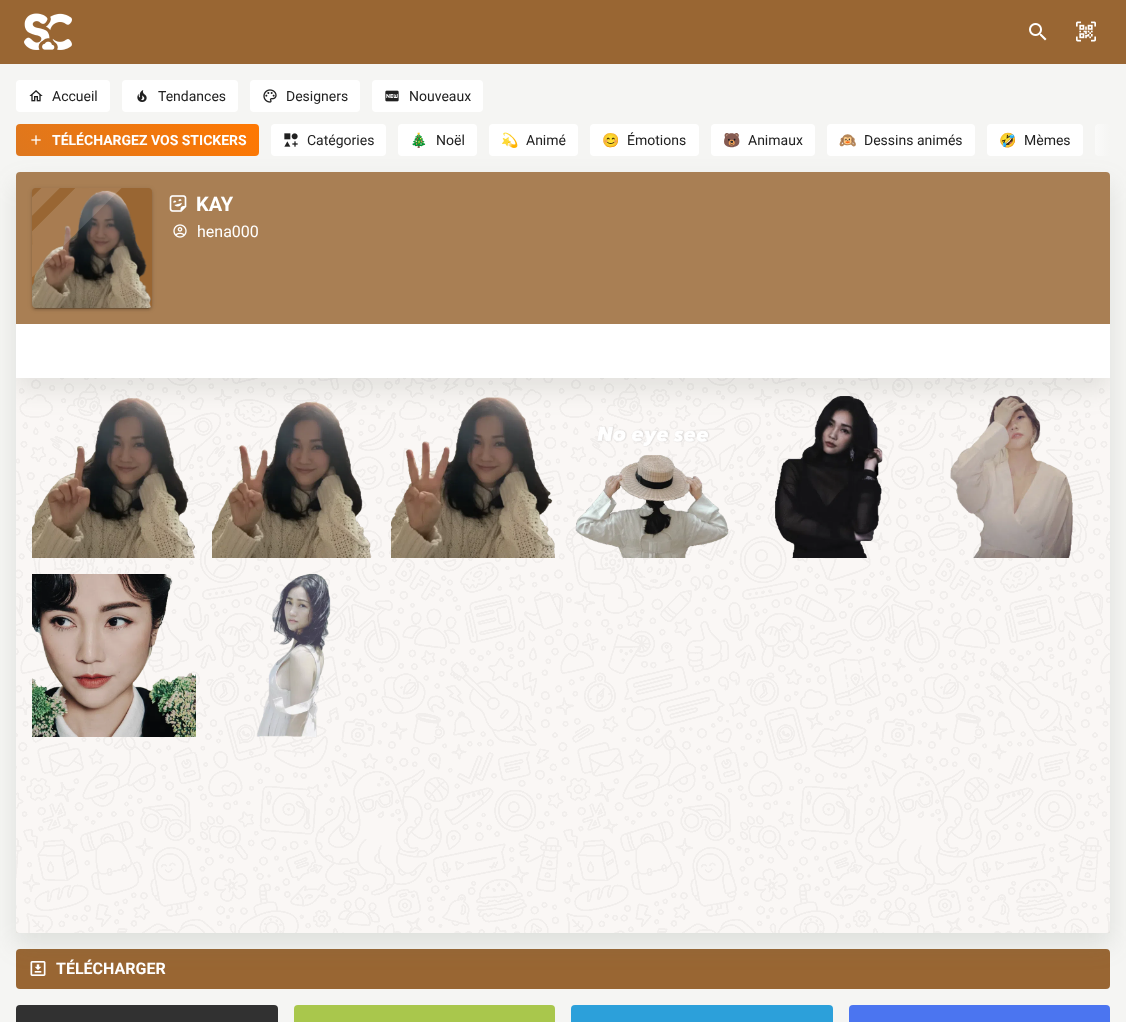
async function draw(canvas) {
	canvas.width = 1126;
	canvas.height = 1022;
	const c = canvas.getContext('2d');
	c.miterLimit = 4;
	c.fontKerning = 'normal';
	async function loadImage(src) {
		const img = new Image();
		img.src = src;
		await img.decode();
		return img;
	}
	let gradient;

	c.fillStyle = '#f5f5f3';
	c.fillRect(0, 0, 1126, 1022);
	c.fillStyle = '#963';
	c.fillRect(0, 0, 1126, 64);
	c.drawImage(await loadImage('img1.png'), 24, 13, 48, 37);
	c.drawImage(await loadImage('img2.png'), 1029, 23, 18, 18);
	c.drawImage(await loadImage('img3.png'), 1076, 21, 20, 21);
	c.fillStyle = '#fff';
	c.beginPath();
	c.roundRect(16, 80, 94, 32, 4);
	c.fill();
	c.drawImage(await loadImage('img4.png'), 29, 90, 14, 12);
	c.font = '14px Roboto';
	c.fillStyle = '#212121';
	c.fillText('Accueil', 52, 101);
	c.fillStyle = '#fff';
	c.beginPath();
	c.roundRect(122, 80, 116, 32, 4);
	c.fill();
	c.drawImage(await loadImage('img5.png'), 137, 90, 10, 12);
	c.fillStyle = '#212121';
	c.fillText('Tendances', 158, 101);
	c.fillStyle = '#fff';
	c.beginPath();
	c.roundRect(250, 80, 110, 32, 4);
	c.fill();
	c.drawImage(await loadImage('img6.png'), 263, 89, 14, 14);
	c.fillStyle = '#212121';
	c.fillText('Designers', 286, 101);
	c.fillStyle = '#fff';
	c.beginPath();
	c.roundRect(372, 80, 111, 32, 4);
	c.fill();
	c.drawImage(await loadImage('img7.png'), 385, 90, 14, 12);
	c.fillStyle = '#212121';
	c.fillText('Nouveaux', 409, 101);
	c.fillStyle = '#963';
	c.beginPath();
	c.roundRect(16, 949, 1094, 40, 4);
	c.fill();
	c.fillStyle = '#666e6229';
	c.filter = 'blur(12px)';
	c.beginPath();
	c.roundRect(16, 184, 1094, 761, 4);
	c.fill();
	c.filter = 'none';
	gradient = c.createLinearGradient(69, 209, 206, 71);
	gradient.addColorStop(0, '#de771e');
	gradient.addColorStop(1, '#ff7802');
	c.fillStyle = gradient;
	c.beginPath();
	c.roundRect(16, 124, 243, 32, 4);
	c.fill();
	c.drawImage(await loadImage('img8.png'), 31, 135, 10, 10);
	c.font = 'bold 14px Roboto';
	c.fillStyle = '#fff';
	c.fillText('TÉLÉCHARGEZ VOS STICKERS', 52, 145);
	c.beginPath();
	c.roundRect(271, 124, 115, 32, 4);
	c.fill();
	c.drawImage(await loadImage('img9.png'), 284, 133, 14, 14);
	c.font = '14px Roboto';
	c.fillStyle = '#212121';
	c.fillText('Catégories', 307, 145);
	c.fillStyle = '#fff';
	c.beginPath();
	c.roundRect(398, 124, 79, 32, 4);
	c.fill();
	c.font = '14px Noto Color Emoji';
	c.fillStyle = '#212121';
	c.fillText('🎄', 410, 145);
	c.font = '14px Roboto';
	c.fillText('Noël', 436, 145);
	c.fillStyle = '#fff';
	c.beginPath();
	c.roundRect(489, 124, 89, 32, 4);
	c.fill();
	c.font = '14px Noto Color Emoji';
	c.fillStyle = '#212121';
	c.fillText('💫', 501, 145);
	c.font = '14px Roboto';
	c.fillText('Animé', 526, 145);
	c.fillStyle = '#fff';
	c.beginPath();
	c.roundRect(590, 124, 109, 32, 4);
	c.fill();
	c.font = '14px Noto Color Emoji';
	c.fillStyle = '#212121';
	c.fillText('😊', 602, 145);
	c.font = '14px Roboto';
	c.fillText('Émotions', 627, 145);
	c.fillStyle = '#fff';
	c.beginPath();
	c.roundRect(711, 124, 104, 32, 4);
	c.fill();
	c.font = '14px Noto Color Emoji';
	c.fillStyle = '#212121';
	c.fillText('🐻', 723, 145);
	c.font = '14px Roboto';
	c.fillText('Animaux', 748, 145);
	c.fillStyle = '#fff';
	c.beginPath();
	c.roundRect(827, 124, 148, 32, 4);
	c.fill();
	c.font = '14px Noto Color Emoji';
	c.fillStyle = '#212121';
	c.fillText('🙉', 839, 145);
	c.font = '14px Roboto';
	c.fillText('Dessins animés', 864, 145);
	c.fillStyle = '#fff';
	c.beginPath();
	c.roundRect(987, 124, 96, 32, 4);
	c.fill();
	c.font = '14px Noto Color Emoji';
	c.fillStyle = '#212121';
	c.fillText('🤣', 999, 145);
	c.font = '14px Roboto';
	c.fillText('Mèmes', 1024, 145);
	c.fillStyle = '#fff';
	c.beginPath();
	c.roundRect(1095, 124, 15, 32, [4, 0, 0, 4]);
	c.fill();
	gradient = c.createLinearGradient(1080, 140, 1110, 140);
	gradient.addColorStop(0, '#f5f5f300');
	gradient.addColorStop(1, '#f5f5f3');
	c.fillStyle = gradient;
	c.fillRect(1095, 124, 15, 32);
	c.fillStyle = '#fff';
	c.beginPath();
	c.roundRect(16, 172, 1094, 761, 4);
	c.fill();
	c.save();
	c.beginPath();
	c.roundRect(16, 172, 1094, 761, 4);
	c.clip();
	c.beginPath();
	c.moveTo(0, 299);
	c.lineTo(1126, 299);
	c.lineTo(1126, 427);
	c.lineTo(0, 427);
	c.closePath();
	c.moveTo(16, 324);
	c.lineTo(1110, 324);
	c.lineTo(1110, 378);
	c.lineTo(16, 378);
	c.closePath();
	c.clip('evenodd');
	c.fillStyle = '#666e6229';
	c.filter = 'blur(12px)';
	c.beginPath();
	c.rect(16, 336, 1094, 54);
	c.fill();
	c.filter = 'none';
	c.restore();
	c.fillStyle = '#996633d6';
	c.beginPath();
	c.roundRect(16, 172, 1094, 152, [4, 4, 0, 0]);
	c.fill();
	c.fillStyle = '#0000001f';
	c.filter = 'blur(2.5px)';
	c.beginPath();
	c.roundRect(32, 189, 120, 120, 4);
	c.fill();
	c.filter = 'none';
	c.fillStyle = '#00000024';
	c.filter = 'blur(1px)';
	c.beginPath();
	c.roundRect(32, 190, 120, 120, 4);
	c.fill();
	c.filter = 'none';
	c.fillStyle = '#00000033';
	c.filter = 'blur(0.5px)';
	c.beginPath();
	c.roundRect(34, 193, 116, 116, 2);
	c.fill();
	c.filter = 'none';
	c.fillStyle = '#963';
	c.beginPath();
	c.roundRect(32, 188, 120, 120, 4);
	c.fill();
	c.drawImage(await loadImage('img11.png'), 32, 190, 119, 118);
	c.drawImage(await loadImage('img10.png'), 32, 188, 90, 89);
	c.drawImage(await loadImage('img12.png'), 169, 195, 18, 17);
	c.font = 'bold 20px Roboto';
	c.fillStyle = '#fff';
	c.fillText('KAY', 196, 211);
	c.drawImage(await loadImage('img13.png'), 173, 224, 14, 14);
	c.font = '16px Roboto';
	c.fillText('hena000', 197, 237);
	c.fillStyle = '#9966330d';
	c.fillRect(16, 378, 1094, 555);
	c.drawImage(await loadImage('img14.png'), 16, 378, 1094, 555);
	c.drawImage(await loadImage('img15.png'), 32, 398, 163, 160);
	c.drawImage(await loadImage('img16.png'), 212, 401, 160, 157);
	c.drawImage(await loadImage('img17.png'), 391, 397, 164, 161);
	c.drawImage(await loadImage('img18.png'), 575, 426, 154, 132);
	c.drawImage(await loadImage('img19.png'), 775, 396, 108, 162);
	c.drawImage(await loadImage('img20.png'), 950, 395, 123, 163);
	c.drawImage(await loadImage('img21.png'), 32, 574, 164, 163);
	c.drawImage(await loadImage('img22.png'), 256, 574, 75, 163);
	c.drawImage(await loadImage('img23.png'), 30, 961, 16, 15);
	c.font = 'bold 16px Roboto';
	c.fillStyle = '#fff';
	c.fillText('TÉLÉCHARGER', 56, 974);
	c.fillStyle = '#313131';
	c.beginPath();
	c.roundRect(16, 1005, 262, 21, 4);
	c.fill();
	c.fillStyle = '#a9c74c';
	c.beginPath();
	c.roundRect(294, 1005, 261, 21, 4);
	c.fill();
	c.fillStyle = '#2ca0da';
	c.beginPath();
	c.roundRect(571, 1005, 262, 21, 4);
	c.fill();
	c.fillStyle = '#4b75f0';
	c.beginPath();
	c.roundRect(849, 1005, 261, 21, 4);
	c.fill();
}

draw(document.querySelector('canvas'));
